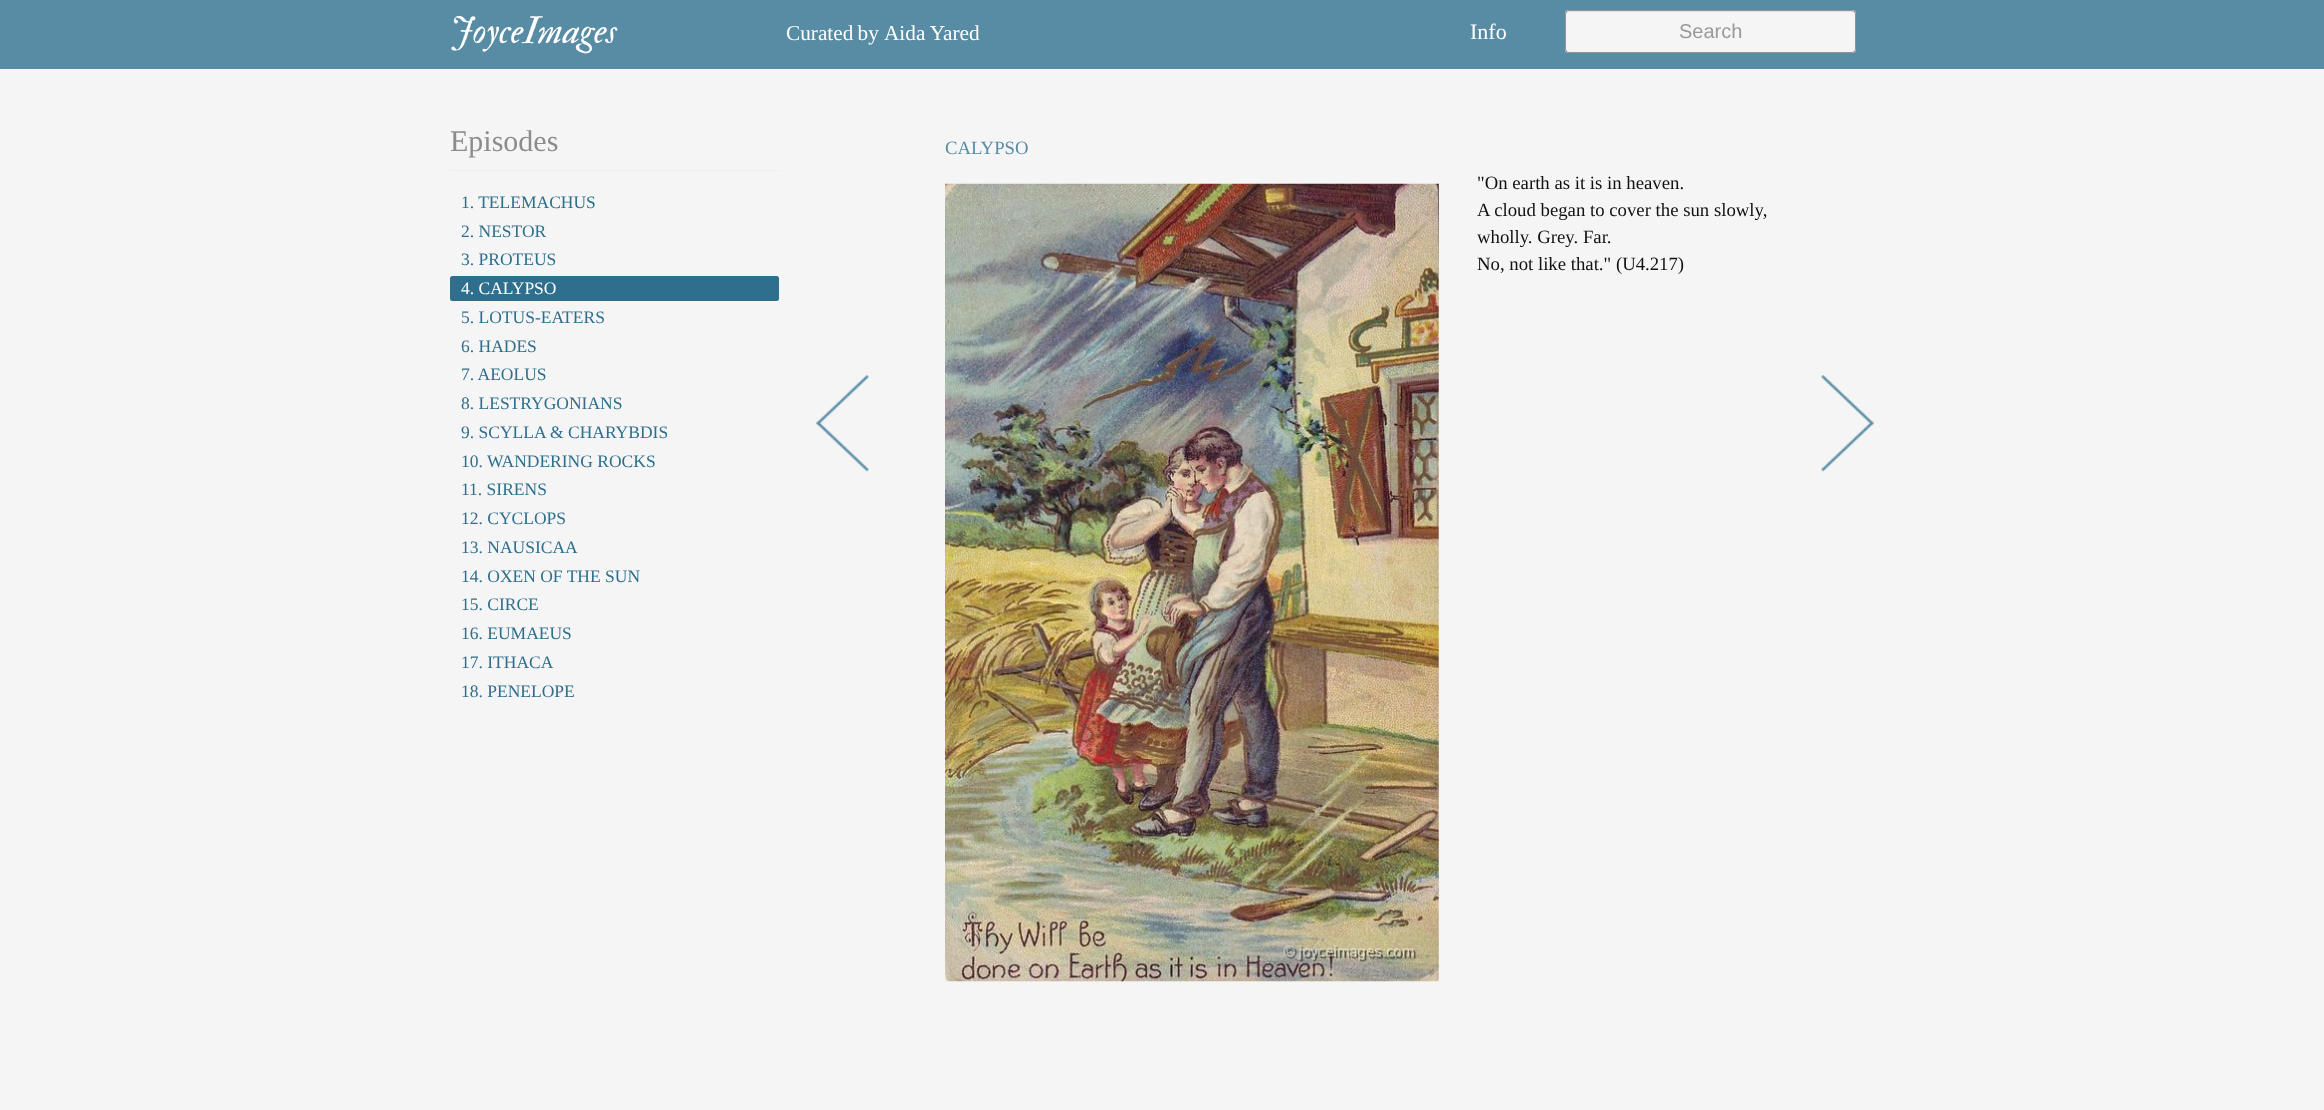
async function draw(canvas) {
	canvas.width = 2324;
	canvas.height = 1110;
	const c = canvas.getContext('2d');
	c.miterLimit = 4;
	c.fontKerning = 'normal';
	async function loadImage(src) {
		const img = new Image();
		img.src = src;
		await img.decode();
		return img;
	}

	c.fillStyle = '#f5f5f5';
	c.fillRect(0, 0, 2324, 1110);
	c.fillStyle = '#588ca4';
	c.fillRect(0, 0, 2324, 69);
	c.font = 'italic 37.5px IM FELL Double Pica';
	c.fillStyle = '#fff';
	c.fillText('JoyceImages', 450, 43);
	c.wordSpacing = '-1px';
	c.font = '21.25px Liberation Serif';
	c.fillText('Curated by', 786, 40);
	c.wordSpacing = '0px';
	c.fillText('Aida Yared', 884, 40);
	c.font = '22px Liberation Serif';
	c.fillText('Info', 1470, 39);
	c.fillStyle = '#f5f5f6';
	c.beginPath();
	c.roundRect(1565, 10, 291, 43, 4);
	c.fill();
	c.fillStyle = '#e3e3e4';
	c.beginPath();
	c.moveTo(1569, 12);
	c.lineTo(1852, 12);
	c.bezierCurveTo(1854, 12, 1855, 14, 1855, 15);
	c.bezierCurveTo(1855, 13, 1855, 11, 1852, 11);
	c.lineTo(1568, 11);
	c.bezierCurveTo(1566, 11, 1566, 13, 1566, 15);
	c.bezierCurveTo(1566, 14, 1567, 12, 1569, 12);
	c.closePath();
	c.fill();
	c.beginPath();
	c.roundRect(1565.5, 10.5, 290, 42, 3.5);
	c.strokeStyle = '#32323280';
	c.stroke();
	c.font = '20px Liberation Sans';
	c.fillStyle = '#999';
	c.fillText('Search', 1679, 38);
	c.font = '30px Liberation Serif';
	c.fillStyle = '#8c8c8c';
	c.fillText('Episodes', 450, 151);
	c.fillStyle = '#eee';
	c.fillRect(450, 170, 329, 1);
	c.font = '17.5px Liberation Serif';
	c.fillStyle = '#2e6f8d';
	for (const [text, x, y] of [
		['1. TELEMACHUS', 461, 208],
		['2. NESTOR', 461, 237],
		['3. PROTEUS', 461, 265],
	]) {
		c.fillText(text, x, y);
	}
	c.beginPath();
	c.roundRect(450, 276, 329, 25, 2.5);
	c.fill();
	c.fillStyle = '#fff';
	c.fillText('4. CALYPSO', 461, 294);
	c.fillStyle = '#2e6f8d';
	for (const [text, x, y] of [
		['5. LOTUS-EATERS', 461, 323],
		['6. HADES', 461, 352],
		['7. AEOLUS', 461, 380],
		['8. LESTRYGONIANS', 461, 409],
		['9. SCYLLA & CHARYBDIS', 461, 438],
		['10. WANDERING ROCKS', 461, 467],
		['11. SIRENS', 461, 495],
		['12. CYCLOPS', 461, 524],
		['13. NAUSICAA', 461, 553],
		['14. OXEN OF THE SUN', 461, 582],
		['15. CIRCE', 461, 610],
		['16. EUMAEUS', 461, 639],
		['17. ITHACA', 461, 668],
		['18. PENELOPE', 461, 697],
	]) {
		c.fillText(text, x, y);
	}
	c.font = '18.75px Liberation Serif';
	c.fillStyle = '#588ca4';
	c.fillText('CALYPSO', 945, 154);
	c.drawImage(await loadImage('img1.png'), 945, 183, 494, 799);
	c.fillStyle = '#111';
	for (const [text, x, y] of [
		['"On earth as it is in heaven.', 1477, 189],
		['A cloud began to cover the sun slowly,', 1477, 216],
		['wholly. Grey. Far.', 1477, 243],
		['No, not like that." (U4.217)', 1477, 270],
	]) {
		c.fillText(text, x, y);
	}
	c.drawImage(await loadImage('img2.png'), 816, 375, 53, 97);
	c.drawImage(await loadImage('img3.png'), 1821, 375, 53, 97);
}

draw(document.querySelector('canvas'));
